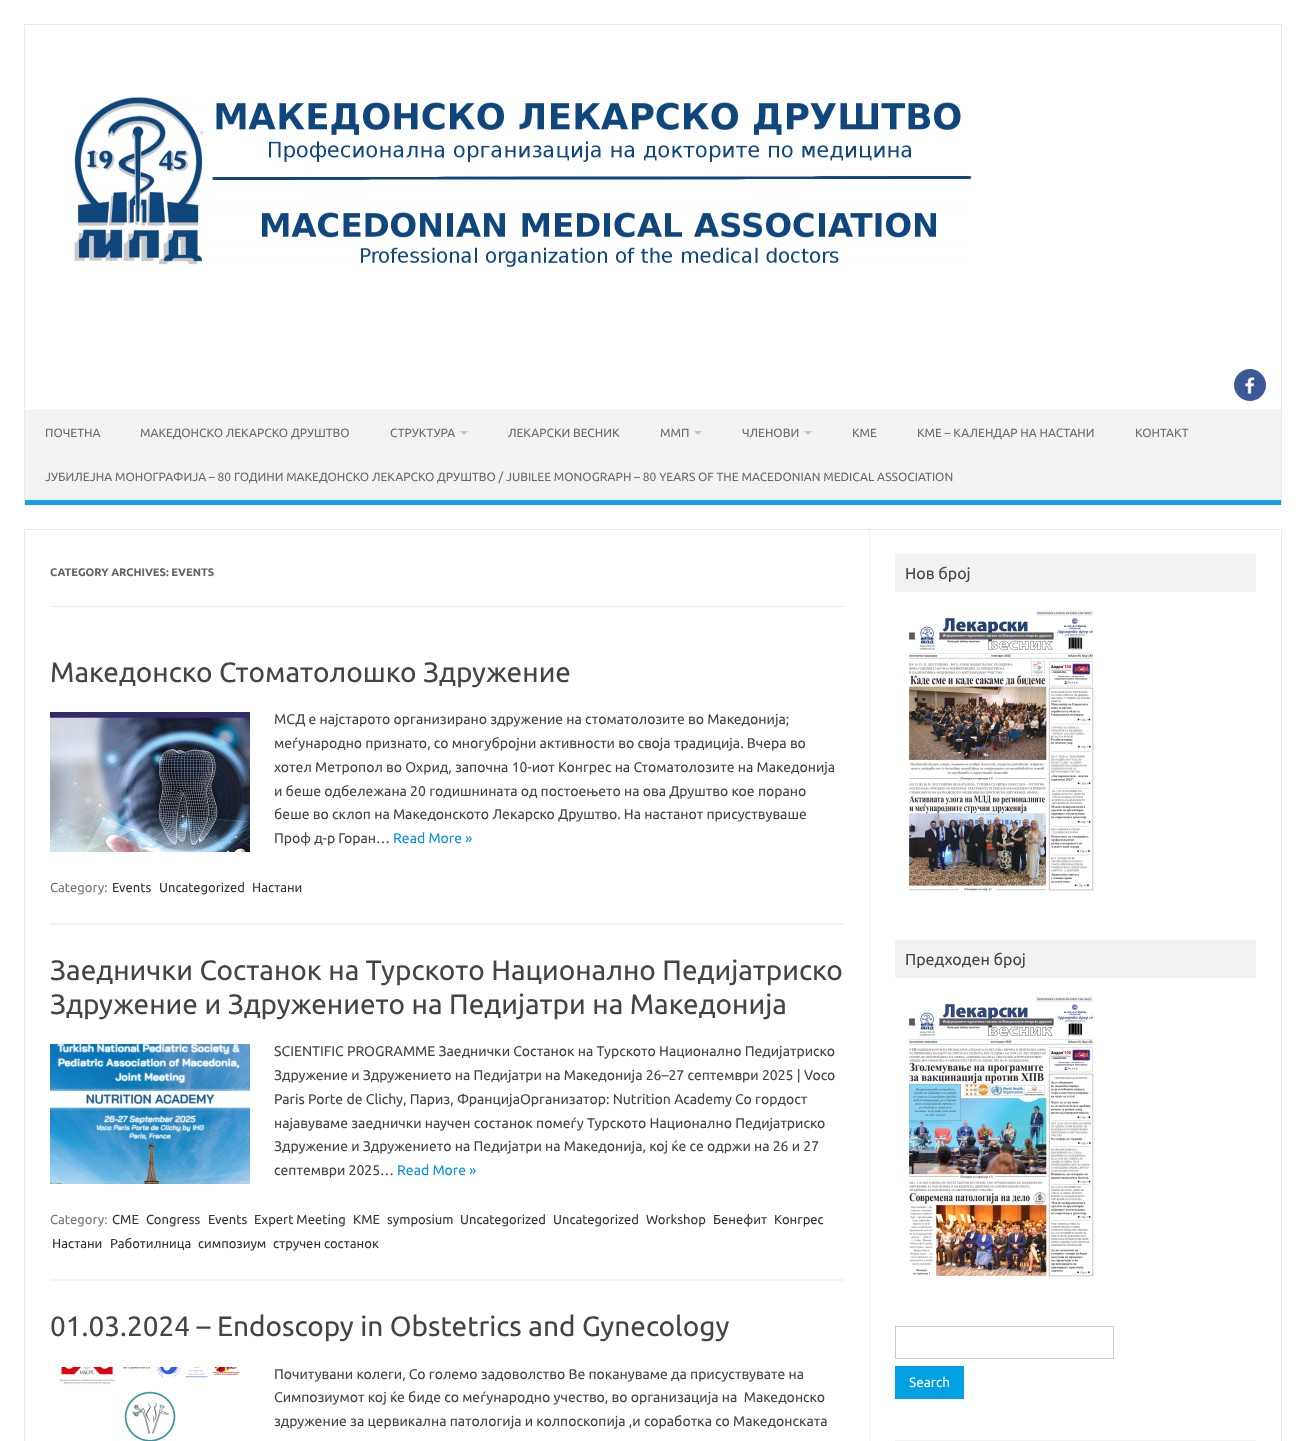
async function draw(canvas) {
	canvas.width = 1306;
	canvas.height = 1441;
	const c = canvas.getContext('2d');
	c.miterLimit = 4;
	c.fontKerning = 'normal';
	async function loadImage(src) {
		const img = new Image();
		img.src = src;
		await img.decode();
		return img;
	}

	c.fillStyle = '#fff';
	c.fillRect(0, 0, 1306, 1441);
	for (const [x, y, w, h, color] of [
		[24, 24, 1258, 1, '#e9e9e9'],
		[1281, 24, 1, 481, '#e9e9e9'],
		[24, 24, 1, 481, '#e9e9e9'],
	]) {
		c.fillStyle = color;
		c.fillRect(x, y, w, h);
	}
	c.drawImage(await loadImage('img1.png'), 74, 97, 898, 170);
	c.drawImage(await loadImage('img2.png'), 1234, 369, 32, 32);
	for (const [x, y, w, h, color] of [
		[25, 411, 1256, 89, '#f3f3f3'],
		[25, 410, 1256, 1, '#ededed'],
		[25, 500, 1256, 5, '#16a1e7'],
	]) {
		c.fillStyle = color;
		c.fillRect(x, y, w, h);
	}
	c.font = '12px Ubuntu';
	c.fillStyle = '#6a6a6a';
	for (const [text, x, y] of [
		['ПОЧЕТНА', 45, 437],
		['МАКЕДОНСКО ЛЕКАРСКО ДРУШТВО', 140, 437],
		['СТРУКТУРА', 390, 437],
	]) {
		c.fillText(text, x, y);
	}
	c.fillStyle = '#c9c9c9';
	c.beginPath();
	c.moveTo(460, 431);
	c.lineTo(468, 431);
	c.lineTo(464, 435);
	c.closePath();
	c.fill();
	c.fillStyle = '#6a6a6a';
	c.fillText('ЛЕКАРСКИ ВЕСНИК', 508, 437);
	c.fillText('ММП', 660, 437);
	c.fillStyle = '#c9c9c9';
	c.beginPath();
	c.moveTo(694, 431);
	c.lineTo(702, 431);
	c.lineTo(698, 435);
	c.closePath();
	c.fill();
	c.fillStyle = '#6a6a6a';
	c.fillText('ЧЛЕНОВИ', 742, 437);
	c.fillStyle = '#c9c9c9';
	c.beginPath();
	c.moveTo(804, 431);
	c.lineTo(812, 431);
	c.lineTo(808, 435);
	c.closePath();
	c.fill();
	c.fillStyle = '#6a6a6a';
	for (const [text, x, y] of [
		['КМЕ', 852, 437],
		['КМЕ – КАЛЕНДАР НА НАСТАНИ', 917, 437],
		['КОНТАКТ', 1135, 437],
		['ЈУБИЛЕЈНА МОНОГРАФИЈА – 80 ГОДИНИ МАКЕДОНСКО ЛЕКАРСКО ДРУШТВО / JUBILEE MONOGRAPH – 80 YEARS OF THE MACEDONIAN MEDICAL ASSOCIATION', 45, 481],
	]) {
		c.fillText(text, x, y);
	}
	c.strokeStyle = '#e9e9e9';
	c.strokeRect(24.5, 529.5, 1257, 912);
	c.fillStyle = '#f1f1f1';
	c.fillRect(869, 530, 1, 911);
	c.fillStyle = '#ededed';
	c.fillRect(50, 606, 794, 1);
	c.font = 'bold 11px Ubuntu';
	c.fillStyle = '#636363';
	c.fillText('CATEGORY ARCHIVES: EVENTS', 50, 576);
	c.fillStyle = '#f3f3f3';
	c.fillRect(50, 923, 794, 2);
	c.font = '28px Ubuntu';
	c.fillStyle = '#444';
	c.fillText('Македонско Стоматолошко Здружение', 50, 682);
	c.drawImage(await loadImage('img3.png'), 50, 712, 200, 140);
	c.font = '14px Ubuntu';
	for (const [text, x, y] of [
		['МСД е најстарото организирано здружение на стоматолозите во Македонија;', 274, 724],
		['меѓународно признато, со многубројни активности во своја традиција. Вчера во', 274, 748],
		['хотел Метропол во Охрид, започна 10-иот Конгрес на Стоматолозите на Македонија', 274, 772],
		['и беше одбележана 20 годишнината од постоењето на ова Друштво кое порано', 274, 796],
		['беше во склоп на Македонското Лекарско Друштво. На настанот присуствуваше', 274, 819],
		['Проф д-р Горан…', 274, 843],
	]) {
		c.fillText(text, x, y);
	}
	c.fillStyle = '#0b91ea';
	c.fillText('Read More »', 393, 843);
	c.font = '13px Ubuntu';
	c.fillStyle = '#757575';
	c.fillText('Category:', 50, 892);
	c.fillStyle = '#333';
	for (const [text, x, y] of [
		['Events', 112, 892],
		['Uncategorized', 159, 892],
		['Настани', 252, 892],
	]) {
		c.fillText(text, x, y);
	}
	c.fillStyle = '#f3f3f3';
	c.fillRect(50, 1279, 794, 2);
	c.font = '28px Ubuntu';
	c.fillStyle = '#444';
	c.fillText('Заеднички Состанок на Турското Национално Педијатриско', 50, 980);
	c.fillText('Здружение и Здружението на Педијатри на Македонија', 50, 1014);
	c.drawImage(await loadImage('img4.png'), 50, 1044, 200, 140);
	c.font = '14px Ubuntu';
	for (const [text, x, y] of [
		['SCIENTIFIC PROGRAMME Заеднички Состанок на Турското Национално Педијатриско', 274, 1056],
		['Здружение и Здружението на Педијатри на Македонија 26–27 септември 2025 | Voco', 274, 1080],
		['Paris Porte de Clichy, Париз, ФранцијаОрганизатор: Nutrition Academy Со гордост', 274, 1104],
		['најавуваме заеднички научен состанок помеѓу Турското Национално Педијатриско', 274, 1128],
		['Здружение и Здружението на Педијатри на Македонија, кој ќе се одржи на 26 и 27', 274, 1151],
		['септември 2025…', 274, 1175],
	]) {
		c.fillText(text, x, y);
	}
	c.fillStyle = '#0b91ea';
	c.fillText('Read More »', 397, 1175);
	c.font = '13px Ubuntu';
	c.fillStyle = '#757575';
	c.fillText('Category:', 50, 1224);
	c.fillStyle = '#333';
	for (const [text, x, y] of [
		['CME', 112, 1224],
		['Congress', 146, 1224],
		['Events', 208, 1224],
		['Expert Meeting', 254, 1224],
		['KME', 353, 1224],
		['symposium', 387, 1224],
		['Uncategorized', 460, 1224],
		['Uncategorized', 553, 1224],
		['Workshop', 646, 1224],
		['Бенефит', 713, 1224],
		['Конгрес', 774, 1224],
		['Настани', 52, 1248],
		['Работилница', 110, 1248],
		['симпозиум', 198, 1248],
		['стручен состанок', 273, 1248],
	]) {
		c.fillText(text, x, y);
	}
	c.font = '28px Ubuntu';
	c.fillStyle = '#444';
	c.fillText('01.03.2024 – Endoscopy in Obstetrics and Gynecology', 50, 1336);
	c.drawImage(await loadImage('img5.png'), 59, 1367, 181, 74);
	c.font = '14px Ubuntu';
	for (const [text, x, y] of [
		['Почитувани колеги, Со големо задоволство Ве покануваме да присуствувате на', 274, 1379],
		['Симпозиумот кој ќе биде со меѓународно учество, во организација на  Македонско', 274, 1402],
		['здружение за цервикална патологија и колпоскопија ,и соработка со Македонската', 274, 1426],
	]) {
		c.fillText(text, x, y);
	}
	c.fillStyle = '#f2f2f2';
	c.fillRect(895, 554, 361, 38);
	c.font = '16px Ubuntu';
	c.fillStyle = '#444';
	c.fillText('Нов број', 905, 579);
	c.drawImage(await loadImage('img6.png'), 909, 610, 185, 281);
	c.fillStyle = '#f2f2f2';
	c.fillRect(895, 940, 361, 38);
	c.fillStyle = '#444';
	c.fillText('Предходен број', 905, 965);
	c.drawImage(await loadImage('img7.png'), 909, 996, 185, 281);
	c.strokeStyle = '#ccc';
	c.strokeRect(895.5, 1326.5, 218, 32);
	c.fillStyle = '#00a1e0';
	c.fillRect(895, 1366, 69, 33);
	c.font = '13.5px Ubuntu';
	c.fillStyle = '#fff';
	c.fillText('Search', 909, 1387);
	c.fillStyle = '#f2f2f2';
	c.fillRect(895, 1440, 361, 1);
}

draw(document.querySelector('canvas'));
